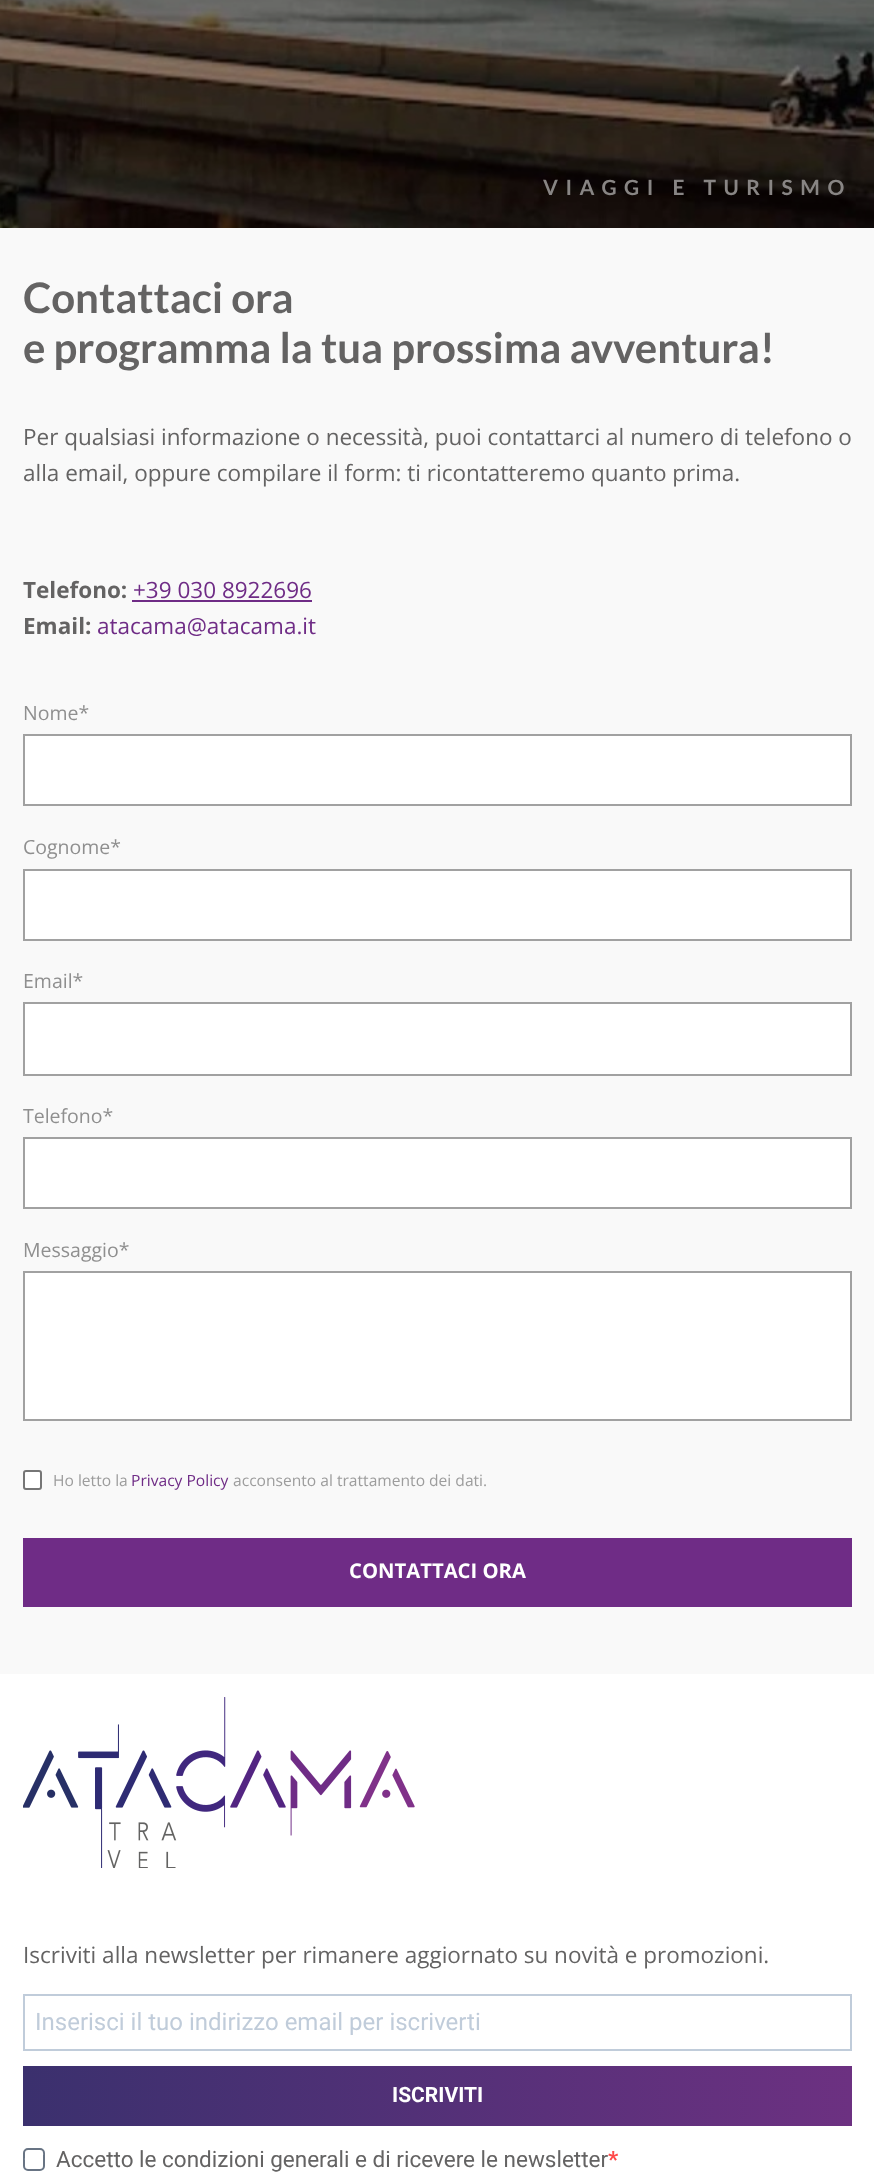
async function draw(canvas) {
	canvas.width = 874;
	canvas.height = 2180;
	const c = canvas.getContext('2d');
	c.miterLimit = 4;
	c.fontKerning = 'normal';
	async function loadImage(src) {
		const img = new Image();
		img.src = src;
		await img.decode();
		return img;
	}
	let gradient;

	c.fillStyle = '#fff';
	c.fillRect(0, 0, 874, 2180);
	c.drawImage(await loadImage('img1.png'), 0, 0, 874, 228);
	c.letterSpacing = '7.5px';
	c.font = 'bold 21px Lato';
	c.fillStyle = '#888584';
	c.fillText('VIAGGI E TURISMO', 543, 195);
	c.fillStyle = '#f9f9f9';
	c.fillRect(0, 228, 874, 1446);
	c.letterSpacing = '0px';
	c.font = 'bold 42px Lato';
	c.fillStyle = '#646363';
	c.fillText('Contattaci ora', 23, 313);
	c.fillText('e programma la tua prossima avventura!', 23, 363);
	c.font = '22.5px Open Sans';
	c.fillText('Per qualsiasi informazione o necessità, puoi contattarci al numero di telefono o', 23, 445);
	c.fillText('alla email, oppure compilare il form: ti ricontatteremo quanto prima.', 23, 481);
	c.font = 'bold 22.5px Open Sans';
	c.fillText('Telefono:', 23, 598);
	c.font = '22.5px Open Sans';
	c.fillStyle = '#6f2c86';
	c.fillText('+39 030 8922696', 133, 598);
	c.fillRect(132, 600, 180, 2);
	c.font = 'bold 22.5px Open Sans';
	c.fillStyle = '#646363';
	c.fillText('Email:', 23, 634);
	c.font = '22.5px Open Sans';
	c.fillStyle = '#6f2c86';
	c.fillText('atacama@atacama.it', 97, 634);
	c.font = '19.5px Open Sans';
	c.fillStyle = '#8f8f8f';
	c.fillText('Nome*', 23, 720);
	c.fillStyle = '#fff';
	c.beginPath();
	c.rect(24, 735, 827, 70);
	c.fill();
	c.strokeStyle = '#a1a1a1';
	c.lineWidth = 2;
	c.stroke();
	c.fillStyle = '#8f8f8f';
	c.fillText('Cognome*', 23, 854);
	c.fillStyle = '#fff';
	c.beginPath();
	c.rect(24, 870, 827, 70);
	c.fill();
	c.stroke();
	c.fillStyle = '#8f8f8f';
	c.fillText('Email*', 23, 988);
	c.fillStyle = '#fff';
	c.beginPath();
	c.rect(24, 1003, 827, 72);
	c.fill();
	c.stroke();
	c.fillStyle = '#8f8f8f';
	c.fillText('Telefono*', 23, 1123);
	c.fillStyle = '#fff';
	c.beginPath();
	c.rect(24, 1138, 827, 70);
	c.fill();
	c.stroke();
	c.fillStyle = '#8f8f8f';
	c.fillText('Messaggio*', 23, 1257);
	c.fillStyle = '#fff';
	c.beginPath();
	c.rect(24, 1272, 827, 148);
	c.fill();
	c.stroke();
	c.beginPath();
	c.roundRect(24, 1471, 17, 18, 2);
	c.fill();
	c.strokeStyle = '#767676';
	c.stroke();
	c.font = '15.6px Open Sans';
	c.fillStyle = '#9d9d9d';
	c.fillText('Ho letto la', 53, 1486);
	c.fillStyle = '#6f2c86';
	c.fillText('Privacy Policy', 131, 1486);
	c.fillStyle = '#9d9d9d';
	c.fillText('acconsento al trattamento dei dati.', 233, 1486);
	c.fillStyle = '#6f2c86';
	c.fillRect(23, 1538, 829, 69);
	c.font = 'bold 20.25px Open Sans';
	c.fillStyle = '#fff';
	c.fillText('CONTATTACI ORA', 349, 1578);
	c.drawImage(await loadImage('img2.png'), 23, 1697, 392, 171);
	c.font = '22.5px Open Sans';
	c.fillStyle = '#646363';
	c.fillText('Iscriviti alla newsletter per rimanere aggiornato su novità e promozioni.', 23, 1963);
	c.strokeStyle = '#c0ccda';
	c.strokeRect(24, 1995, 827, 55);
	c.font = '24px Roboto';
	c.fillStyle = '#c0ccda';
	c.fillText('Inserisci il tuo indirizzo email per iscriverti', 35, 2030);
	gradient = c.createLinearGradient(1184, 2096, -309, 2096);
	gradient.addColorStop(0, '#803189');
	gradient.addColorStop(1, '#273066');
	c.fillStyle = gradient;
	c.fillRect(23, 2066, 829, 60);
	c.font = 'bold 21px Roboto';
	c.fillStyle = '#fff';
	c.fillText('ISCRIVITI', 392, 2102);
	c.beginPath();
	c.roundRect(24, 2149, 20, 21, 4);
	c.strokeStyle = '#687484';
	c.stroke();
	c.beginPath();
	c.moveTo(41, 2152);
	c.lineTo(43.5, 2154);
	c.lineTo(31.5, 2166);
	c.lineTo(29.5, 2163.5);
	c.closePath();
	c.fill();
	c.beginPath();
	c.moveTo(27, 2157);
	c.lineTo(34, 2163.5);
	c.lineTo(31.5, 2166);
	c.lineTo(24.5, 2159);
	c.closePath();
	c.fill();
	c.font = '22.5px Roboto';
	c.fillStyle = '#646363';
	c.fillText('Accetto le condizioni generali e di ricevere le newsletter', 56, 2167);
	c.font = 'bold 22.5px Roboto';
	c.fillStyle = '#ff4949';
	c.fillText('*', 608, 2167);
}

draw(document.querySelector('canvas'));
